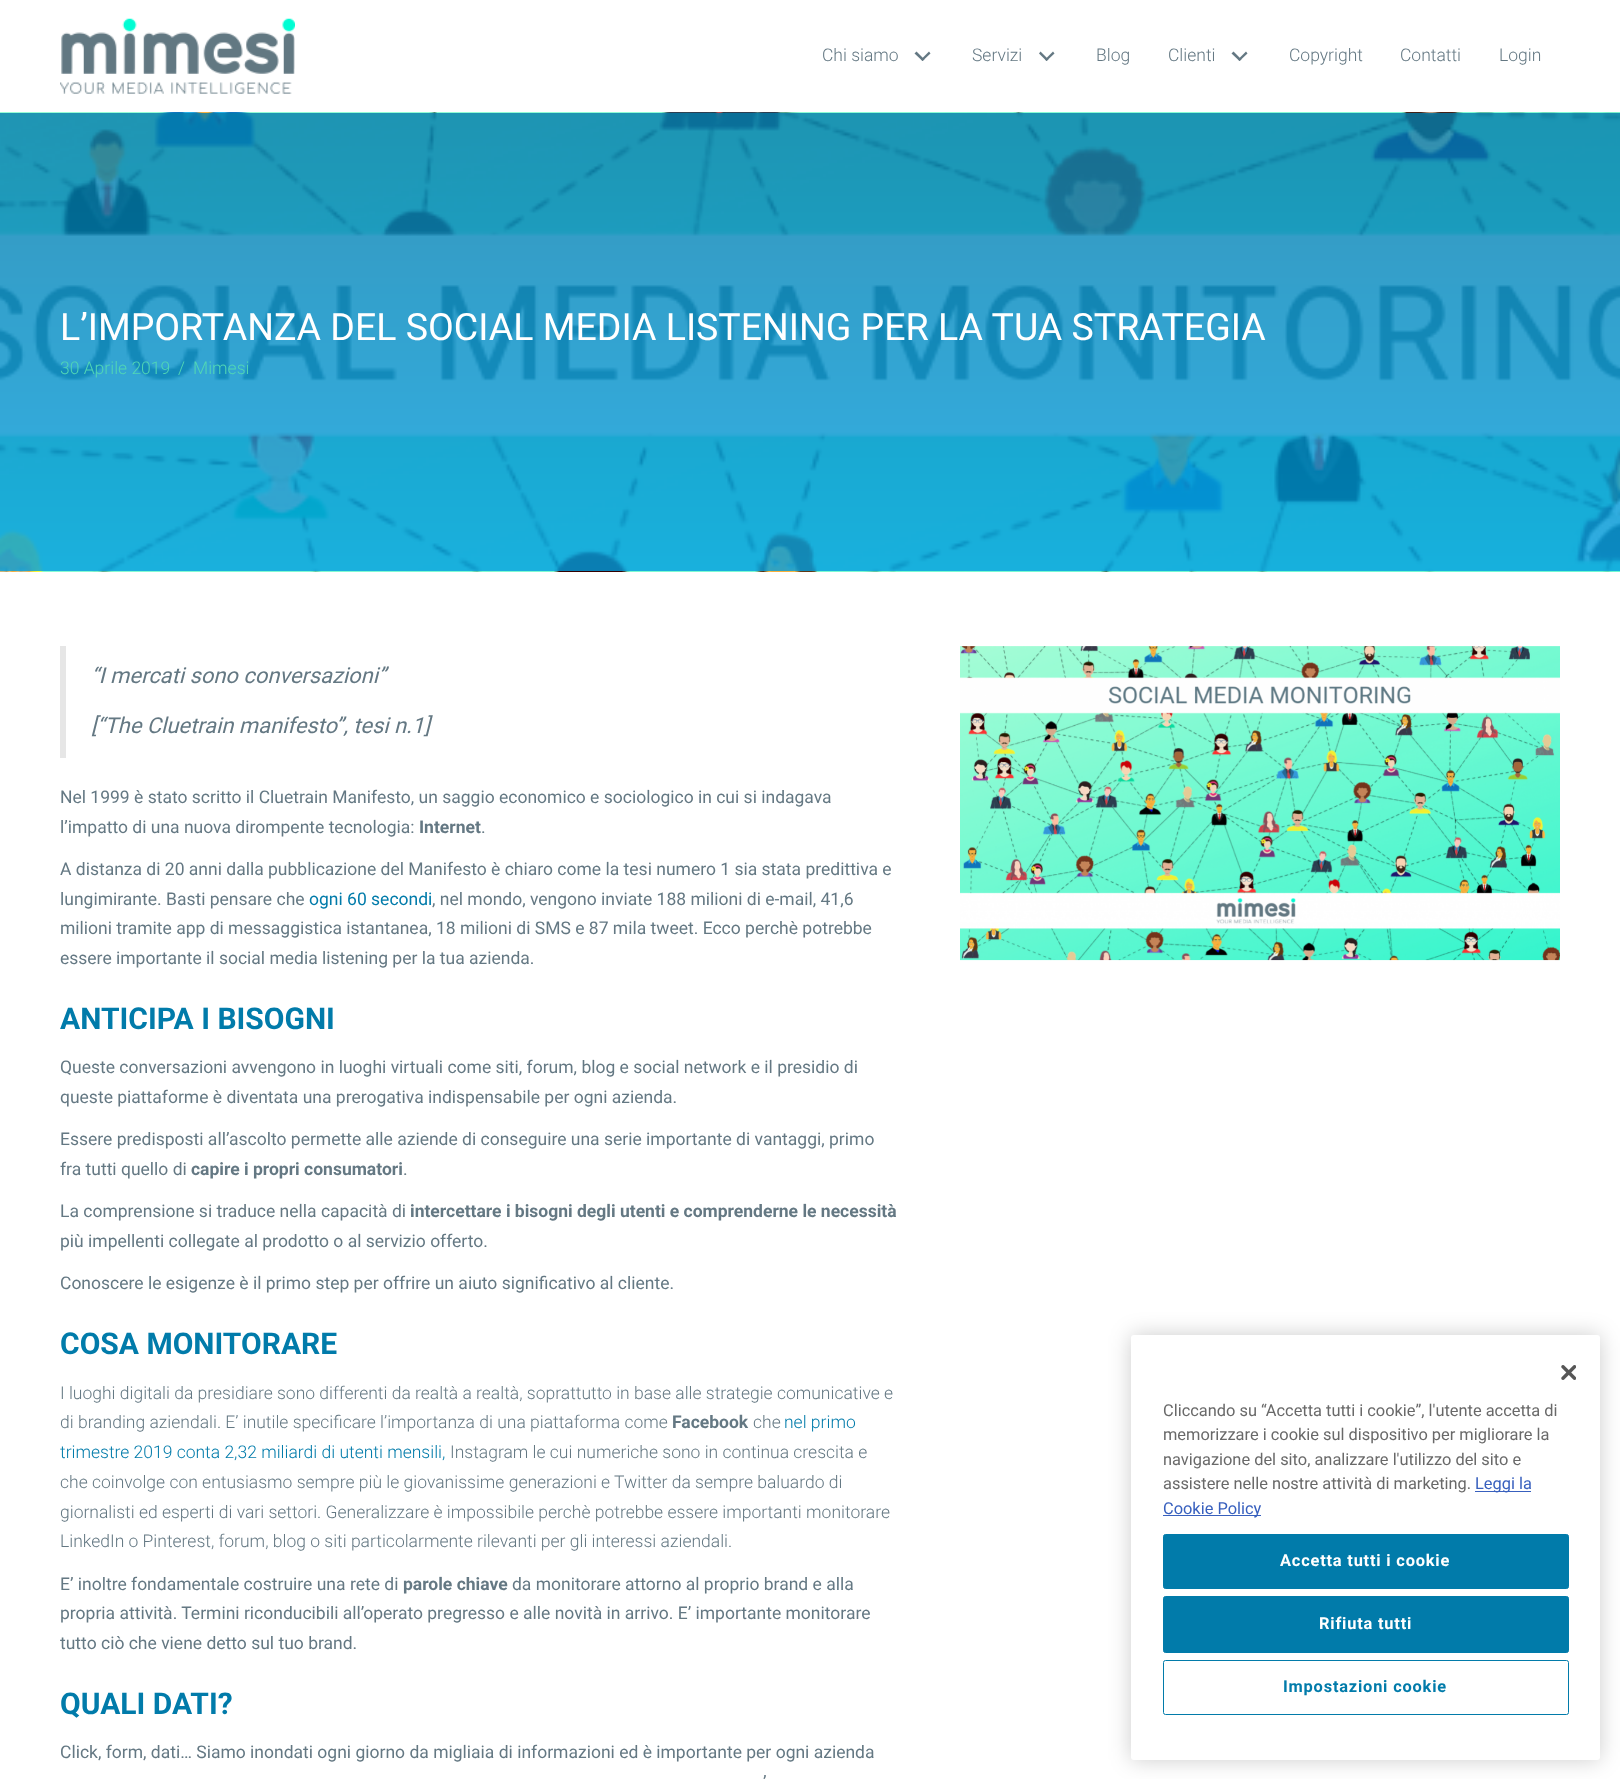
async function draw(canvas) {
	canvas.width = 1620;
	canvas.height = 1779;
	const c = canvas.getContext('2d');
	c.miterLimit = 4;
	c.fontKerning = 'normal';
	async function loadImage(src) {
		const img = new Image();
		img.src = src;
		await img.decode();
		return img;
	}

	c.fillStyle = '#fff';
	c.fillRect(0, 0, 1620, 1779);
	c.drawImage(await loadImage('img1.png'), 60, 18, 235, 76);
	c.font = '300 17.5px Roboto';
	c.fillStyle = '#647883';
	c.fillText('Chi siamo', 822, 61);
	c.beginPath();
	c.moveTo(929, 51.5);
	c.lineTo(930.5, 53.5);
	c.lineTo(922.5, 61);
	c.lineTo(921, 59.5);
	c.closePath();
	c.fill();
	c.beginPath();
	c.moveTo(916.5, 51.5);
	c.lineTo(924.5, 59.5);
	c.lineTo(922.5, 61);
	c.lineTo(914.5, 53.5);
	c.closePath();
	c.fill();
	c.fillText('Servizi', 972, 61);
	c.beginPath();
	c.moveTo(1053, 51.5);
	c.lineTo(1054.5, 53.5);
	c.lineTo(1046.5, 61);
	c.lineTo(1045, 59.5);
	c.closePath();
	c.fill();
	c.beginPath();
	c.moveTo(1040.5, 51.5);
	c.lineTo(1048.5, 59.5);
	c.lineTo(1046.5, 61);
	c.lineTo(1039, 53.5);
	c.closePath();
	c.fill();
	c.fillText('Blog', 1096, 61);
	c.fillText('Clienti', 1168, 61);
	c.beginPath();
	c.moveTo(1246, 51.5);
	c.lineTo(1247.5, 53.5);
	c.lineTo(1239.5, 61);
	c.lineTo(1238, 59.5);
	c.closePath();
	c.fill();
	c.beginPath();
	c.moveTo(1233.5, 51.5);
	c.lineTo(1241.5, 59.5);
	c.lineTo(1239.5, 61);
	c.lineTo(1231.5, 53.5);
	c.closePath();
	c.fill();
	for (const [text, x, y] of [
		['Copyright', 1289, 61],
		['Contatti', 1400, 61],
		['Login', 1499, 61],
	]) {
		c.fillText(text, x, y);
	}
	c.drawImage(await loadImage('img2.png'), 0, 112, 1620, 460);
	c.font = '37.5px Roboto';
	c.fillStyle = '#fff';
	c.fillText('L’IMPORTANZA DEL SOCIAL MEDIA LISTENING PER LA TUA STRATEGIA', 60, 340);
	c.font = '300 17.5px Roboto';
	c.fillStyle = '#51d6b5';
	for (const [text, x, y] of [
		['30 Aprile 2019', 60, 374],
		['/', 178, 374],
		['Mimesi', 193, 374],
	]) {
		c.fillText(text, x, y);
	}
	c.fillStyle = '#e6e6e6';
	c.fillRect(60, 646, 6, 112);
	c.font = 'italic 21.9px Roboto';
	c.fillStyle = '#647883';
	c.fillText('“I mercati sono conversazioni”', 91, 683);
	c.fillText('[“The Cluetrain manifesto”, tesi n.1]', 91, 733);
	c.font = '17.5px Roboto';
	c.fillText('Nel 1999 è stato scritto il Cluetrain Manifesto, un saggio economico e sociologico in cui si indagava', 60, 803);
	c.fillText('l’impatto di una nuova dirompente tecnologia:', 60, 833);
	c.font = 'bold 17.5px Roboto';
	c.fillText('Internet', 419, 833);
	c.font = '17.5px Roboto';
	for (const [text, x, y] of [
		['.', 481, 833],
		['A distanza di 20 anni dalla pubblicazione del Manifesto è chiaro come la tesi numero 1 sia stata predittiva e', 60, 875],
		['lungimirante. Basti pensare che', 60, 905],
	]) {
		c.fillText(text, x, y);
	}
	c.fillStyle = '#017baa';
	c.fillText('ogni 60 secondi', 309, 905);
	c.fillStyle = '#647883';
	for (const [text, x, y] of [
		[', nel mondo, vengono inviate 188 milioni di e-mail, 41,6', 432, 905],
		['milioni tramite app di messaggistica istantanea, 18 milioni di SMS e 87 mila tweet. Ecco perchè potrebbe', 60, 934],
		['essere importante il social media listening per la tua azienda.', 60, 964],
	]) {
		c.fillText(text, x, y);
	}
	c.font = 'bold 30px Roboto';
	c.fillStyle = '#017baa';
	c.fillText('ANTICIPA I BISOGNI', 60, 1029);
	c.font = '17.5px Roboto';
	c.fillStyle = '#647883';
	for (const [text, x, y] of [
		['Queste conversazioni avvengono in luoghi virtuali come siti, forum, blog e social network e il presidio di', 60, 1073],
		['queste piattaforme è diventata una prerogativa indispensabile per ogni azienda.', 60, 1103],
		['Essere predisposti all’ascolto permette alle aziende di conseguire una serie importante di vantaggi, primo', 60, 1145],
		['fra tutti quello di', 60, 1175],
	]) {
		c.fillText(text, x, y);
	}
	c.font = 'bold 17.5px Roboto';
	c.fillText('capire i propri consumatori', 191, 1175);
	c.font = '17.5px Roboto';
	c.fillText('.', 403, 1175);
	c.fillText('La comprensione si traduce nella capacità di', 60, 1217);
	c.font = 'bold 17.5px Roboto';
	c.fillText('intercettare i bisogni degli utenti e comprenderne le necessità', 410, 1217);
	c.font = '17.5px Roboto';
	c.fillText('più impellenti collegate al prodotto o al servizio offerto.', 60, 1247);
	c.fillText('Conoscere le esigenze è il primo step per offrire un aiuto significativo al cliente.', 60, 1289);
	c.font = 'bold 30px Roboto';
	c.fillStyle = '#017baa';
	c.fillText('COSA MONITORARE', 60, 1354);
	c.font = '300 17.5px Roboto';
	c.fillStyle = '#647883';
	c.fillText('I luoghi digitali da presidiare sono differenti da realtà a realtà, soprattutto in base alle strategie comunicative e', 60, 1399);
	c.fillText('di branding aziendali. E’ inutile specificare l’importanza di una piattaforma come', 60, 1428);
	c.font = 'bold 17.5px Roboto';
	c.fillText('Facebook', 672, 1428);
	c.font = '300 17.5px Roboto';
	c.fillText('che', 753, 1428);
	c.fillStyle = '#017baa';
	c.fillText('nel primo', 784, 1428);
	c.fillText('trimestre 2019 conta 2,32 miliardi di utenti mensili,', 60, 1458);
	c.fillStyle = '#647883';
	for (const [text, x, y] of [
		['Instagram le cui numeriche sono in continua crescita e', 450, 1458],
		['che coinvolge con entusiasmo sempre più le giovanissime generazioni e Twitter da sempre baluardo di', 60, 1488],
		['giornalisti ed esperti di vari settori. Generalizzare è impossibile perchè potrebbe essere importanti monitorare', 60, 1518],
		['LinkedIn o Pinterest, forum, blog o siti particolarmente rilevanti per gli interessi aziendali.', 60, 1547],
	]) {
		c.fillText(text, x, y);
	}
	c.font = '17.5px Roboto';
	c.fillText('E’ inoltre fondamentale costruire una rete di', 60, 1590);
	c.font = 'bold 17.5px Roboto';
	c.fillText('parole chiave', 403, 1590);
	c.font = '17.5px Roboto';
	for (const [text, x, y] of [
		['da monitorare attorno al proprio brand e alla', 512, 1590],
		['propria attività. Termini riconducibili all’operato pregresso e alle novità in arrivo. E’ importante monitorare', 60, 1619],
		['tutto ciò che viene detto sul tuo brand.', 60, 1649],
	]) {
		c.fillText(text, x, y);
	}
	c.font = 'bold 30px Roboto';
	c.fillStyle = '#017baa';
	c.fillText('QUALI DATI?', 60, 1714);
	c.font = '17.5px Roboto';
	c.fillStyle = '#647883';
	c.fillText('Click, form, dati… Siamo inondati ogni giorno da migliaia di informazioni ed è importante per ogni azienda', 60, 1758);
	c.fillText('’', 763, 1788);
	c.drawImage(await loadImage('img3.png'), 960, 646, 600, 315);
	c.fillStyle = '#00000033';
	c.filter = 'blur(11px)';
	c.beginPath();
	c.roundRect(1131, 1335, 469, 425, 3);
	c.fill();
	c.filter = 'none';
	c.fillStyle = '#fff';
	c.beginPath();
	c.roundRect(1131, 1335, 469, 425, 3);
	c.fill();
	c.drawImage(await loadImage('img4.png'), 1561, 1365, 15, 15);
	c.font = '16.4px Roboto';
	c.fillStyle = '#696969';
	for (const [text, x, y] of [
		['Cliccando su “Accetta tutti i cookie”, l\'utente accetta di', 1163, 1416],
		['memorizzare i cookie sul dispositivo per migliorare la', 1163, 1440],
		['navigazione del sito, analizzare l\'utilizzo del sito e', 1163, 1465],
		['assistere nelle nostre attività di marketing.', 1163, 1489],
	]) {
		c.fillText(text, x, y);
	}
	c.fillStyle = '#3860be';
	c.fillRect(1475, 1491, 56, 1);
	c.fillText('Leggi la', 1475, 1489);
	c.fillRect(1163, 1515, 98, 1);
	c.fillText('Cookie Policy', 1163, 1514);
	c.fillStyle = '#017baa';
	c.beginPath();
	c.roundRect(1163.5, 1534.5, 405, 54, 2);
	c.fill();
	c.strokeStyle = '#017baa';
	c.stroke();
	c.letterSpacing = '0.8px';
	c.font = 'bold 16.4px Roboto';
	c.fillStyle = '#fff';
	c.fillText('Accetta tutti i cookie', 1280, 1566);
	c.fillStyle = '#017baa';
	c.beginPath();
	c.roundRect(1163.5, 1596.5, 405, 56, 2);
	c.fill();
	c.stroke();
	c.fillStyle = '#fff';
	c.fillText('Rifiuta tutti', 1319, 1629);
	c.beginPath();
	c.roundRect(1163.5, 1660.5, 405, 54, 2);
	c.stroke();
	c.fillStyle = '#017baa';
	c.fillText('Impostazioni cookie', 1283, 1692);
}

draw(document.querySelector('canvas'));
